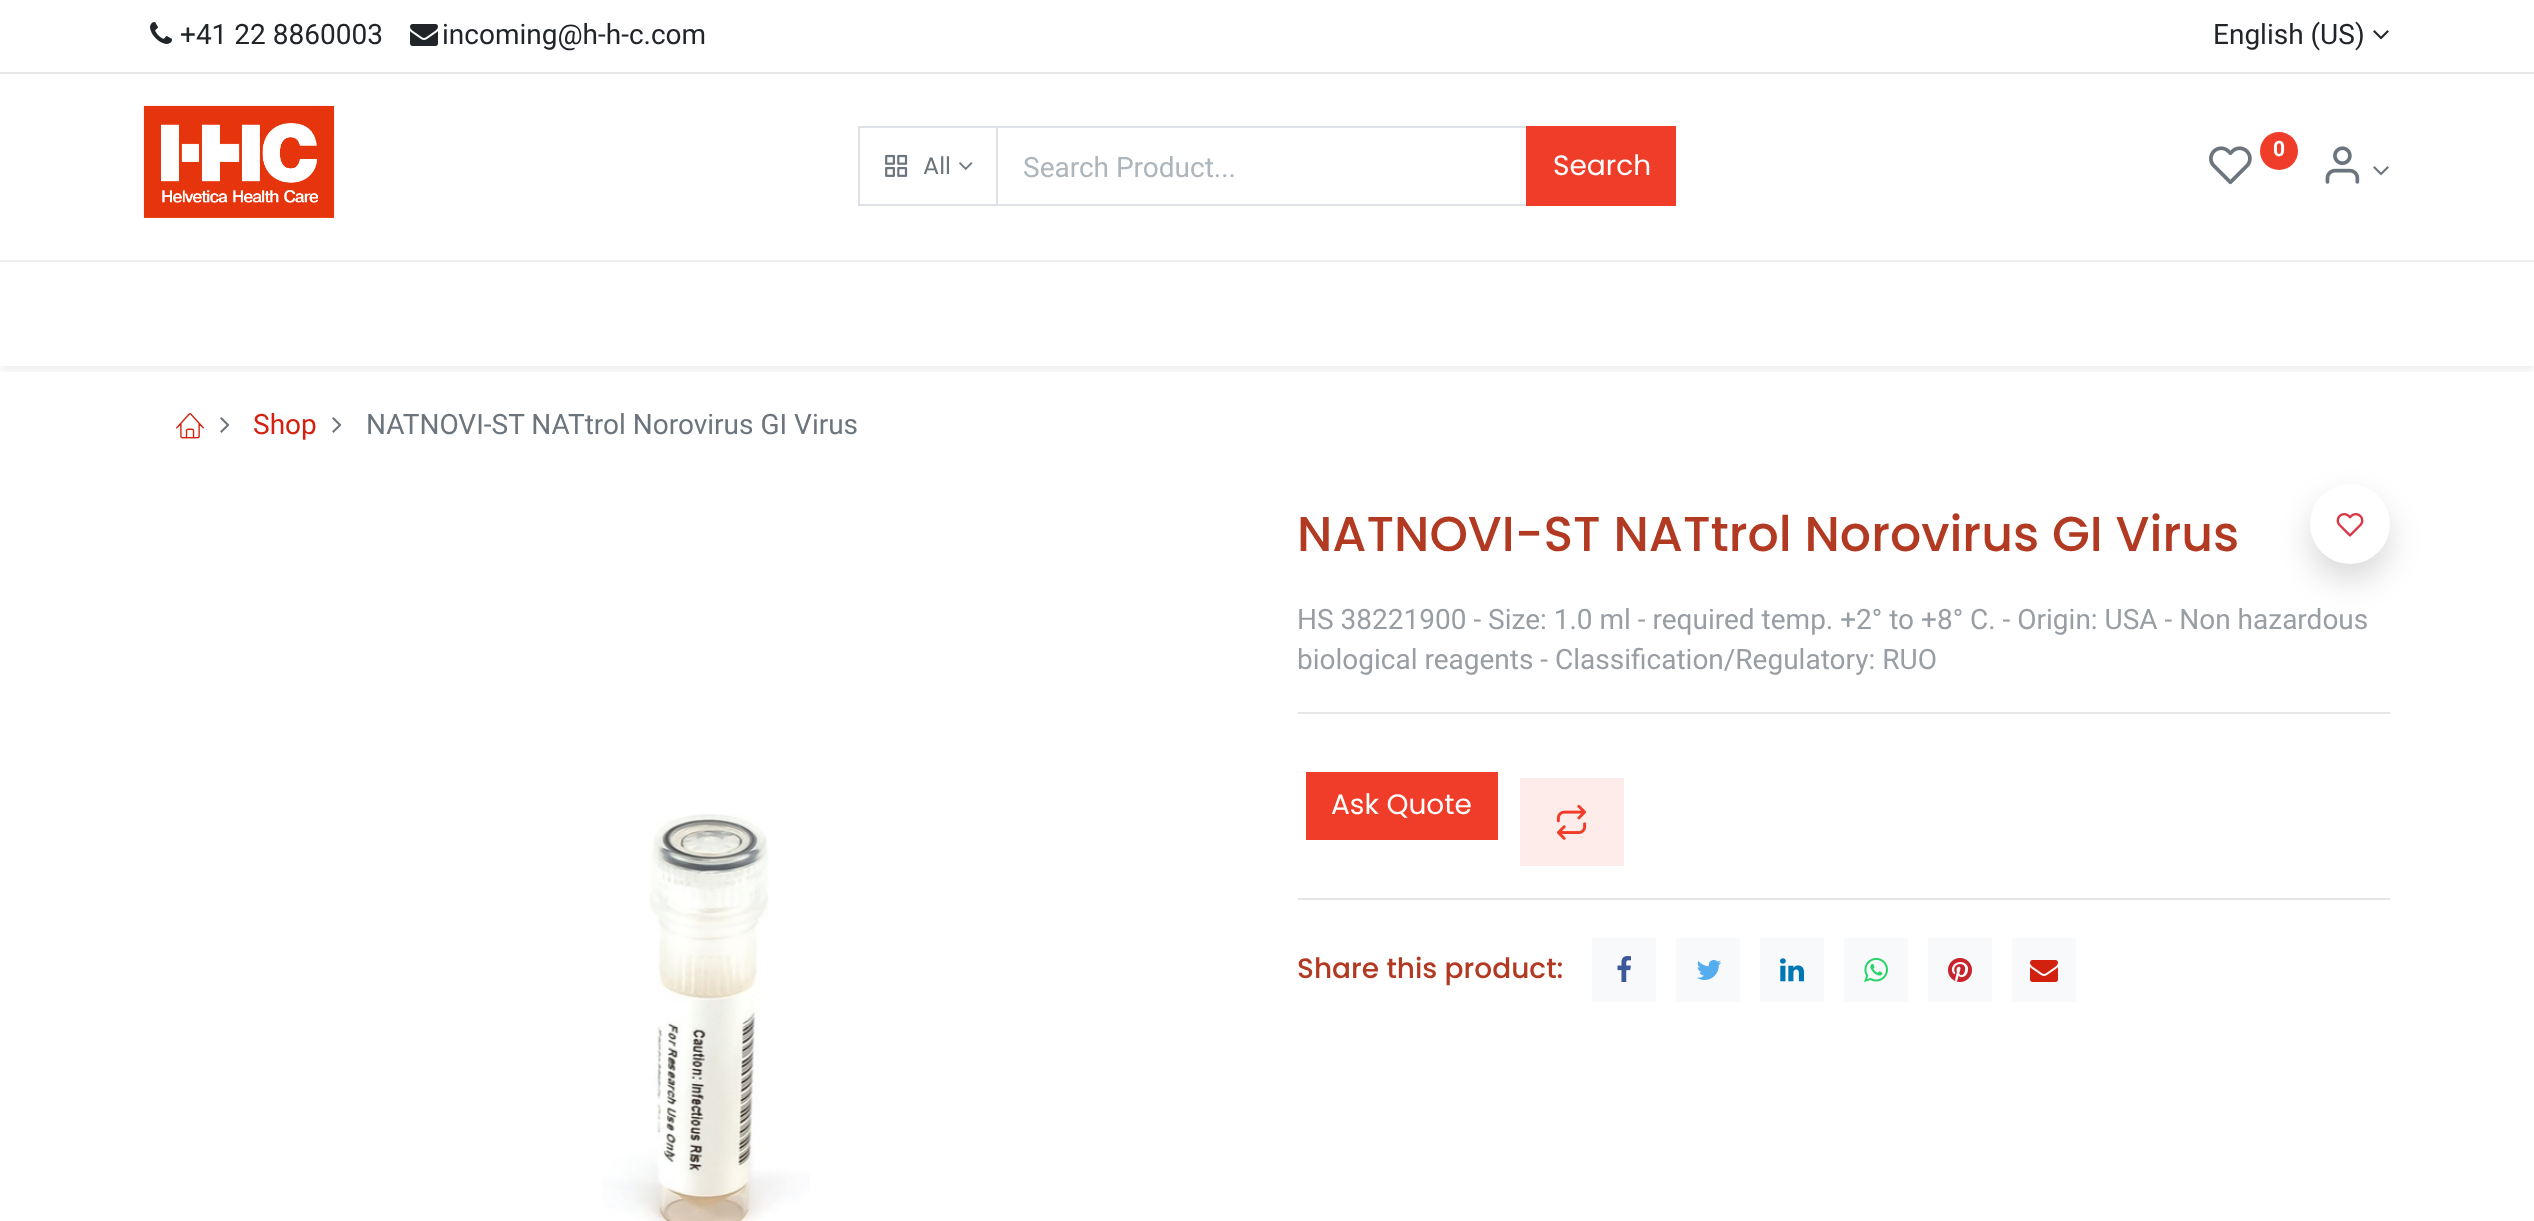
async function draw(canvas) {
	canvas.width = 2534;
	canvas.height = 1221;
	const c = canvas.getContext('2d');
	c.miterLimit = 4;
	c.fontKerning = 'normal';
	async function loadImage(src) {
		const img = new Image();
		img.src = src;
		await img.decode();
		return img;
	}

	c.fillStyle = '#fff';
	c.fillRect(0, 0, 2534, 1221);
	c.fillStyle = '#e4e5e5';
	c.fillRect(0, 72, 2534, 2);
	c.drawImage(await loadImage('img1.png'), 150, 22, 22, 22);
	c.font = '28px Roboto';
	c.fillStyle = '#212529';
	c.fillText('+41 22 8860003', 180, 44);
	c.drawImage(await loadImage('img2.png'), 410, 24, 28, 22);
	c.fillText('incoming@h-h-c.com', 442, 44);
	c.fillText('English (US)', 2213, 44);
	c.drawImage(await loadImage('img3.png'), 2373, 30, 16, 10);
	c.fillStyle = '#edeeef';
	c.fillRect(0, 260, 2534, 2);
	c.drawImage(await loadImage('img4.png'), 143, 105, 192, 113);
	c.drawImage(await loadImage('img5.png'), 2209, 146, 43, 39);
	c.fillStyle = '#f03d29';
	c.beginPath();
	c.arc(2279, 151, 19, 0, 2 * Math.PI);
	c.fill();
	c.font = 'bold 21px Roboto';
	c.fillStyle = '#fff';
	c.fillText('0', 2273, 156);
	c.drawImage(await loadImage('img6.png'), 2325, 146, 35, 38);
	c.drawImage(await loadImage('img7.png'), 2373, 166, 16, 10);
	c.strokeStyle = '#dee2e6';
	c.lineWidth = 2;
	c.strokeRect(997, 127, 530, 78);
	c.strokeRect(859, 127, 138, 78);
	c.drawImage(await loadImage('img8.png'), 885, 154, 23, 23);
	c.font = '24px Poppins';
	c.fillStyle = '#6c757d';
	c.fillText('All', 923, 174);
	c.drawImage(await loadImage('img9.png'), 959, 162, 14, 8);
	c.font = '28px Roboto';
	c.fillStyle = '#adb5bd';
	c.fillText('Search Product...', 1023, 177);
	c.fillStyle = '#f03d29';
	c.fillRect(1526, 126, 150, 80);
	c.font = '28px Poppins';
	c.fillStyle = '#fff';
	c.fillText('Search', 1553, 175);
	c.save();
	c.beginPath();
	c.rect(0, 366, 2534, 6);
	c.clip();
	c.fillStyle = '#00000012';
	c.filter = 'blur(4px)';
	c.beginPath();
	c.rect(0, 266, 2534, 104);
	c.fill();
	c.filter = 'none';
	c.restore();
	c.drawImage(await loadImage('img10.png'), 176, 413, 28, 26);
	c.drawImage(await loadImage('img11.png'), 220, 417, 10, 16);
	c.font = '28px Roboto';
	c.fillStyle = '#d2220f';
	c.fillText('Shop', 253, 434);
	c.drawImage(await loadImage('img11.png'), 332, 417, 10, 16);
	c.fillStyle = '#6c757d';
	c.fillText('NATNOVI-ST NATtrol Norovirus GI Virus', 366, 434);
	c.drawImage(await loadImage('img12.png'), 602, 814, 208, 407);
	c.font = '500 49px Poppins';
	c.fillStyle = '#b23a22';
	c.fillText('NATNOVI-ST NATtrol Norovirus GI Virus', 1297, 551);
	c.font = '28px Roboto';
	c.fillStyle = '#989ea4';
	c.fillText('HS 38221900 - Size: 1.0 ml - required temp. +2° to +8° C. - Origin: USA - Non hazardous', 1297, 629);
	c.fillText('biological reagents - Classification/Regulatory: RUO', 1297, 669);
	c.fillStyle = '#00000026';
	c.filter = 'blur(16px)';
	c.beginPath();
	c.roundRect(2310, 500, 80, 80, 40);
	c.fill();
	c.filter = 'none';
	c.fillStyle = '#fff';
	c.beginPath();
	c.arc(2350, 524, 40, 0, 2 * Math.PI);
	c.fill();
	c.drawImage(await loadImage('img13.png'), 2336, 513, 28, 24);
	c.fillStyle = '#feecea';
	c.fillRect(1520, 778, 104, 88);
	c.drawImage(await loadImage('img14.png'), 1556, 804, 31, 36);
	c.fillStyle = '#e6e6e6';
	c.fillRect(1298, 712, 1092, 2);
	c.fillStyle = '#f03d29';
	c.fillRect(1306, 772, 192, 68);
	c.font = '28px Poppins';
	c.fillStyle = '#fff';
	c.fillText('Ask Quote', 1331, 814);
	c.fillStyle = '#e6e6e6';
	c.fillRect(1298, 898, 1092, 2);
	c.font = '500 28px Poppins';
	c.fillStyle = '#b23a22';
	c.fillText('Share this product:', 1297, 978);
	c.fillStyle = '#f8f9fa';
	c.fillRect(1592, 938, 64, 64);
	c.drawImage(await loadImage('img15.png'), 1617, 956, 14, 26);
	c.fillRect(1676, 938, 64, 64);
	c.drawImage(await loadImage('img16.png'), 1696, 960, 26, 20);
	c.fillRect(1760, 938, 64, 64);
	c.drawImage(await loadImage('img17.png'), 1780, 958, 24, 24);
	c.fillRect(1844, 938, 64, 64);
	c.drawImage(await loadImage('img18.png'), 1864, 957, 24, 25);
	c.fillRect(1928, 938, 64, 64);
	c.drawImage(await loadImage('img19.png'), 1948, 958, 24, 24);
	c.fillRect(2012, 938, 64, 64);
	c.drawImage(await loadImage('img20.png'), 2030, 960, 28, 22);
}

draw(document.querySelector('canvas'));
